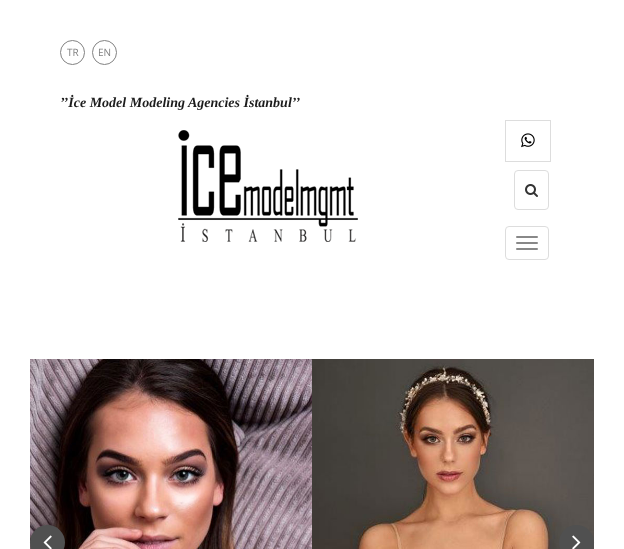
async function draw(canvas) {
	canvas.width = 624;
	canvas.height = 549;
	const c = canvas.getContext('2d');
	c.miterLimit = 4;
	c.fontKerning = 'normal';
	async function loadImage(src) {
		const img = new Image();
		img.src = src;
		await img.decode();
		return img;
	}

	c.fillStyle = '#fff';
	c.fillRect(0, 0, 624, 549);
	c.beginPath();
	c.arc(72.5, 52.5, 12, 0, 2 * Math.PI);
	c.strokeStyle = '#828282';
	c.stroke();
	c.font = '10px Open Sans';
	c.fillStyle = '#828282';
	c.fillText('TR', 67, 56);
	c.beginPath();
	c.arc(104.5, 52.5, 12, 0, 2 * Math.PI);
	c.stroke();
	c.fillText('EN', 98, 56);
	c.font = 'italic bold 14px Liberation Serif';
	c.fillStyle = '#1c1c1c';
	c.fillText('’’İce Model Modeling Agencies İstanbul’’', 60, 107);
	c.drawImage(await loadImage('img1.png'), 178, 130, 180, 112);
	c.strokeStyle = '#ddd';
	c.strokeRect(505.5, 120.5, 45, 41);
	c.drawImage(await loadImage('img2.png'), 521, 133, 14, 15);
	c.beginPath();
	c.roundRect(514.5, 170.5, 34, 39, 3.5);
	c.stroke();
	c.drawImage(await loadImage('img3.png'), 525, 184, 13, 13);
	c.beginPath();
	c.roundRect(505.5, 226.5, 43, 33, 3.5);
	c.stroke();
	c.fillStyle = '#888';
	c.beginPath();
	c.roundRect(516, 236, 22, 2, 1);
	c.fill();
	c.beginPath();
	c.roundRect(516, 242, 22, 2, 1);
	c.fill();
	c.beginPath();
	c.roundRect(516, 248, 22, 2, 1);
	c.fill();
	c.drawImage(await loadImage('img4.png'), 30, 359, 282, 190);
	c.drawImage(await loadImage('img5.png'), 312, 359, 282, 190);
	c.fillStyle = '#505050';
	c.beginPath();
	c.arc(47.5, 542.5, 17.5, 0, 2 * Math.PI);
	c.fill();
	c.drawImage(await loadImage('img6.png'), 43, 535, 9, 14);
	c.beginPath();
	c.arc(576.5, 542.5, 17.5, 0, 2 * Math.PI);
	c.fill();
	c.drawImage(await loadImage('img7.png'), 572, 535, 9, 14);
}

draw(document.querySelector('canvas'));
